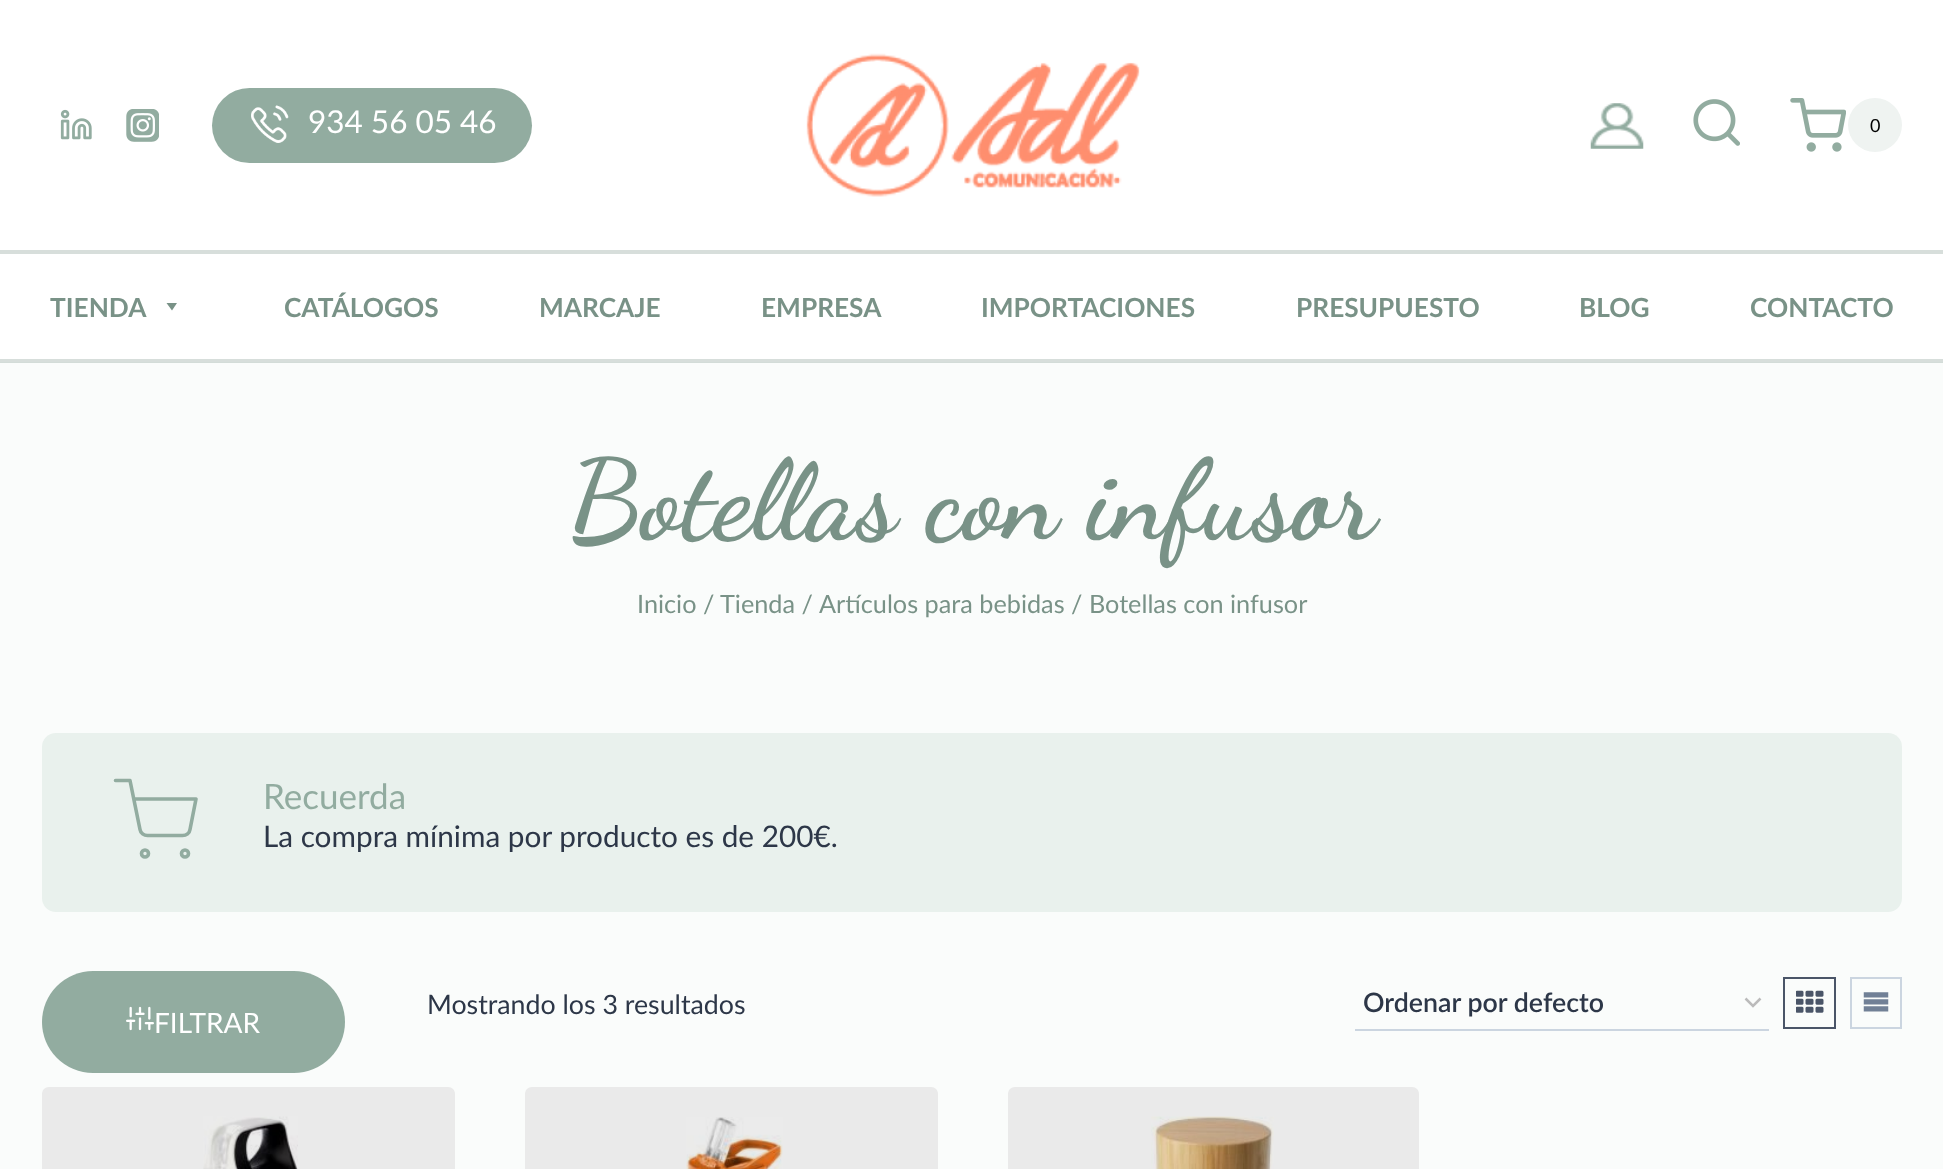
async function draw(canvas) {
	canvas.width = 1943;
	canvas.height = 1169;
	const c = canvas.getContext('2d');
	c.miterLimit = 4;
	c.fontKerning = 'normal';
	async function loadImage(src) {
		const img = new Image();
		img.src = src;
		await img.decode();
		return img;
	}

	c.fillStyle = '#fafcfb';
	c.fillRect(0, 0, 1943, 1169);
	for (const [x, y, w, h, color] of [
		[0, 362, 1943, 1, '#d3dcd8'],
		[0, 0, 1943, 359, '#fff'],
		[0, 359, 1943, 3, '#d7dedb'],
	]) {
		c.fillStyle = color;
		c.fillRect(x, y, w, h);
	}
	c.drawImage(await loadImage('img1.png'), 60, 109, 32, 31);
	c.drawImage(await loadImage('img2.png'), 126, 109, 33, 33);
	c.fillStyle = '#92aca0';
	c.beginPath();
	c.roundRect(212, 88, 320, 75, 37.5);
	c.fill();
	c.drawImage(await loadImage('img3.png'), 251, 105, 38, 38);
	c.font = '31.5px Lato';
	c.fillStyle = '#fff';
	c.fillText('934 56 05 46', 308, 133);
	c.drawImage(await loadImage('img4.png'), 806, 53, 334, 144);
	c.drawImage(await loadImage('img5.png'), 1590, 103, 54, 46);
	c.drawImage(await loadImage('img6.png'), 1693, 99, 47, 47);
	c.drawImage(await loadImage('img7.png'), 1790, 98, 56, 54);
	c.fillStyle = '#eff3f1';
	c.beginPath();
	c.arc(1875, 125, 27, 0, 2 * Math.PI);
	c.fill();
	c.letterSpacing = '-1px';
	c.font = '18px Lato';
	c.fillStyle = '#000';
	c.fillText('0', 1870, 132);
	c.fillStyle = '#d7dedb';
	c.fillRect(0, 250, 1943, 4);
	c.letterSpacing = '0px';
	c.font = 'bold 26.25px Lato';
	c.fillStyle = '#799287';
	c.fillText('TIENDA', 50, 317);
	c.beginPath();
	c.moveTo(177, 303);
	c.lineTo(172, 310.5);
	c.lineTo(166.5, 303);
	c.closePath();
	c.fill();
	for (const [text, x, y] of [
		['CATÁLOGOS', 284, 317],
		['MARCAJE', 539, 317],
		['EMPRESA', 761, 317],
		['IMPORTACIONES', 981, 317],
		['PRESUPUESTO', 1296, 317],
		['BLOG', 1579, 317],
		['CONTACTO', 1750, 317],
	]) {
		c.fillText(text, x, y);
	}
	c.font = 'bold 112px Dancing Script';
	c.fillText('Botellas con infusor', 568, 537);
	c.font = '25.25px Lato';
	for (const [text, x, y] of [
		['Inicio /', 637, 613],
		['Tienda /', 720, 613],
		['Artículos para bebidas / Botellas con infusor', 819, 613],
	]) {
		c.fillText(text, x, y);
	}
	c.fillStyle = '#e9f1ed';
	c.beginPath();
	c.roundRect(42, 733, 1860, 179, 14);
	c.fill();
	c.beginPath();
	c.arc(145, 853.5, 3.5, 0, 2 * Math.PI);
	c.strokeStyle = '#92aca0';
	c.lineWidth = 3.6;
	c.stroke();
	c.beginPath();
	c.arc(185, 853.5, 3.5, 0, 2 * Math.PI);
	c.stroke();
	c.beginPath();
	c.moveTo(115.5, 780.5);
	c.lineTo(130, 780.5);
	c.lineTo(140, 829.5);
	c.bezierCurveTo(140.5, 833, 144, 835.5, 147.5, 835.5);
	c.lineTo(182.5, 835.5);
	c.bezierCurveTo(186.5, 835.5, 189.5, 833, 190, 829.5);
	c.lineTo(196, 799);
	c.lineTo(134, 799);
	c.lineCap = 'round';
	c.lineJoin = 'round';
	c.stroke();
	c.font = '35px Lato';
	c.fillStyle = '#92aca0';
	c.fillText('Recuerda', 263, 809);
	c.font = '29.75px Lato';
	c.fillStyle = '#2d3748';
	c.fillText('La compra mínima por producto es de 200€.', 263, 847);
	c.fillStyle = '#92aca0';
	c.beginPath();
	c.roundRect(42, 971, 303, 102, 51);
	c.fill();
	c.drawImage(await loadImage('img8.png'), 126, 1006, 28, 25);
	c.font = '28px Lato';
	c.fillStyle = '#fff';
	c.fillText('FILTRAR', 154, 1033);
	c.font = '26.75px Lato';
	c.fillStyle = '#2d3748';
	c.fillText('Mostrando los 3 resultados', 427, 1014);
	c.beginPath();
	c.moveTo(1745.5, 998.5);
	c.lineTo(1753, 1006);
	c.lineTo(1760.5, 998.5);
	c.strokeStyle = '#bbb';
	c.lineWidth = 2.5;
	c.lineCap = 'butt';
	c.lineJoin = 'miter';
	c.stroke();
	c.fillStyle = '#cbd5e0';
	c.fillRect(1355, 1029, 414, 2);
	c.font = '600 26.75px Lato';
	c.fillStyle = '#2d3748';
	c.fillText('Ordenar por defecto', 1363, 1012);
	c.strokeStyle = '#4a5568';
	c.lineWidth = 2;
	c.strokeRect(1784, 978, 51, 50);
	c.drawImage(await loadImage('img9.png'), 1796, 990, 28, 23);
	c.strokeStyle = '#cbd5e0';
	c.strokeRect(1851, 978, 50, 50);
	c.drawImage(await loadImage('img10.png'), 1863, 992, 26, 20);
	c.fillStyle = '#eaeaea';
	c.beginPath();
	c.moveTo(49, 1087);
	c.lineTo(448, 1087);
	c.bezierCurveTo(452, 1087, 455, 1090, 455, 1094);
	c.lineTo(455, 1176);
	c.lineTo(42, 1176);
	c.lineTo(42, 1094);
	c.bezierCurveTo(42, 1090, 45, 1087, 49, 1087);
	c.closePath();
	c.fill();
	c.drawImage(await loadImage('img11.png'), 203, 1116, 95, 53);
	c.beginPath();
	c.moveTo(532, 1087);
	c.lineTo(931, 1087);
	c.bezierCurveTo(935, 1087, 938, 1090, 938, 1094);
	c.lineTo(938, 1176);
	c.lineTo(525, 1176);
	c.lineTo(525, 1094);
	c.bezierCurveTo(525, 1090, 528, 1087, 532, 1087);
	c.closePath();
	c.fill();
	c.drawImage(await loadImage('img12.png'), 686, 1117, 97, 52);
	c.beginPath();
	c.moveTo(1015, 1087);
	c.lineTo(1412, 1087);
	c.bezierCurveTo(1416, 1087, 1419, 1090, 1419, 1094);
	c.lineTo(1419, 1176);
	c.lineTo(1008, 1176);
	c.lineTo(1008, 1094);
	c.bezierCurveTo(1008, 1090, 1011, 1087, 1015, 1087);
	c.closePath();
	c.fill();
	c.drawImage(await loadImage('img13.png'), 1151, 1116, 123, 53);
}

draw(document.querySelector('canvas'));
